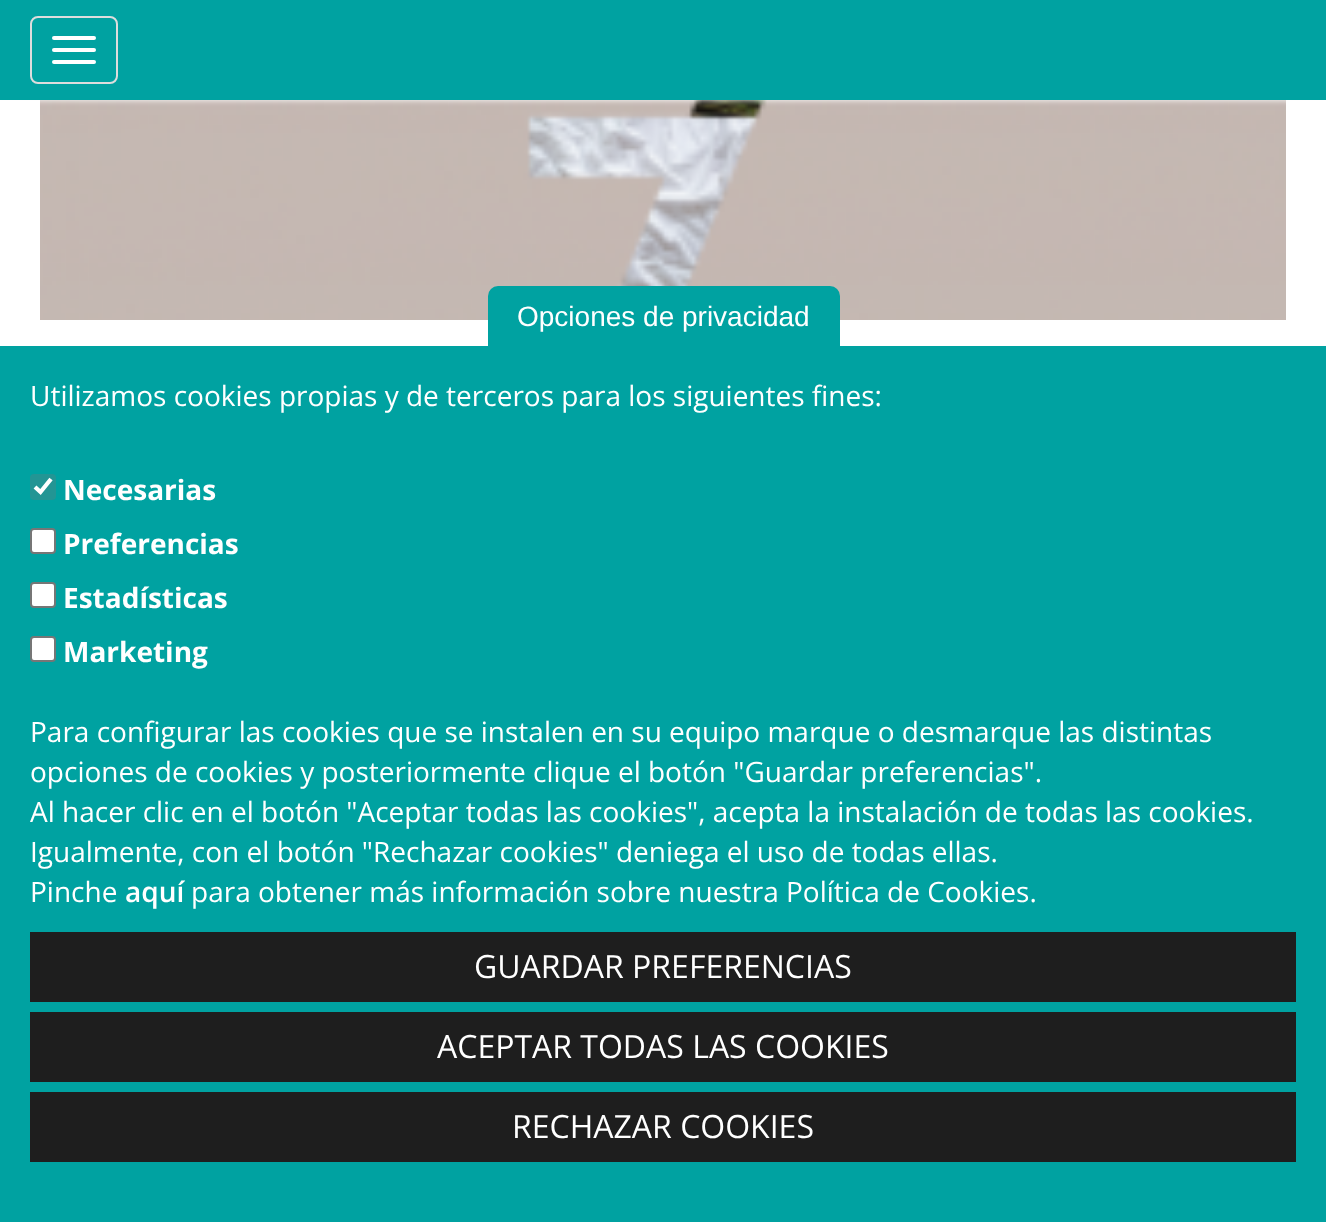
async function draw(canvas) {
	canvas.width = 1326;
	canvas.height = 1222;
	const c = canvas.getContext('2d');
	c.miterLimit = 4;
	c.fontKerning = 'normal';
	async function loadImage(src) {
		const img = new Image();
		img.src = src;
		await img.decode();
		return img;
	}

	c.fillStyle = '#fff';
	c.fillRect(0, 0, 1326, 1222);
	c.drawImage(await loadImage('img1.png'), 40, 100, 1246, 220);
	c.filter = 'blur(3px)';
	c.beginPath();
	c.rect(0, 0, 1326, 100);
	c.fill();
	c.filter = 'none';
	c.fillStyle = '#00a2a1';
	c.fillRect(0, 0, 1326, 100);
	c.beginPath();
	c.roundRect(31, 17, 86, 66, 7);
	c.strokeStyle = '#ddd';
	c.lineWidth = 2;
	c.stroke();
	c.fillStyle = '#fff';
	c.beginPath();
	c.roundRect(52, 36, 44, 4, 2);
	c.fill();
	c.beginPath();
	c.roundRect(52, 48, 44, 4, 2);
	c.fill();
	c.beginPath();
	c.roundRect(52, 60, 44, 4, 2);
	c.fill();
	c.fillStyle = '#00a2a1';
	c.beginPath();
	c.roundRect(488, 286, 352, 60, [10, 10, 0, 0]);
	c.fill();
	c.font = '28px Liberation Sans';
	c.fillStyle = '#fff';
	c.fillText('Opciones de privacidad', 517, 326);
	c.fillStyle = '#00a2a1';
	c.fillRect(0, 346, 1326, 876);
	c.font = '28px Open Sans';
	c.fillStyle = '#fff';
	c.fillText('Utilizamos cookies propias y de terceros para los siguientes fines:', 30, 406);
	c.fillStyle = '#239594';
	c.beginPath();
	c.roundRect(30, 474, 26, 26, 4);
	c.fill();
	c.beginPath();
	c.moveTo(35, 487);
	c.lineTo(40.5, 492);
	c.lineTo(51, 479);
	c.strokeStyle = '#fff';
	c.lineWidth = 4.2;
	c.stroke();
	c.font = 'bold 28px Open Sans';
	c.fillStyle = '#fff';
	c.fillText('Necesarias', 63, 500);
	c.beginPath();
	c.roundRect(31, 529, 24, 24, 3);
	c.fill();
	c.strokeStyle = '#767676';
	c.lineWidth = 2;
	c.stroke();
	c.fillText('Preferencias', 63, 554);
	c.beginPath();
	c.roundRect(31, 583, 24, 24, 3);
	c.fill();
	c.stroke();
	c.fillText('Estadísticas', 63, 608);
	c.beginPath();
	c.roundRect(31, 637, 24, 24, 3);
	c.fill();
	c.stroke();
	c.fillText('Marketing', 63, 662);
	c.font = '28px Open Sans';
	for (const [text, x, y] of [
		['Para configurar las cookies que se instalen en su equipo marque o desmarque las distintas', 30, 742],
		['opciones de cookies y posteriormente clique el botón "Guardar preferencias".', 30, 782],
		['Al hacer clic en el botón "Aceptar todas las cookies", acepta la instalación de todas las cookies.', 30, 822],
		['Igualmente, con el botón "Rechazar cookies" deniega el uso de todas ellas.', 30, 862],
		['Pinche', 30, 902],
	]) {
		c.fillText(text, x, y);
	}
	c.font = '600 28px Open Sans';
	c.fillText('aquí', 125, 902);
	c.font = '28px Open Sans';
	c.fillText('para obtener más información sobre nuestra Política de Cookies.', 191, 902);
	c.fillStyle = '#1e1e1e';
	c.fillRect(30, 932, 1266, 70);
	c.font = '32px Open Sans';
	c.fillStyle = '#fff';
	c.fillText('GUARDAR PREFERENCIAS', 474, 978);
	c.fillStyle = '#1e1e1e';
	c.fillRect(30, 1012, 1266, 70);
	c.fillStyle = '#fff';
	c.fillText('ACEPTAR TODAS LAS COOKIES', 437, 1058);
	c.fillStyle = '#1e1e1e';
	c.fillRect(30, 1092, 1266, 70);
	c.fillStyle = '#fff';
	c.fillText('RECHAZAR COOKIES', 512, 1138);
}

draw(document.querySelector('canvas'));
